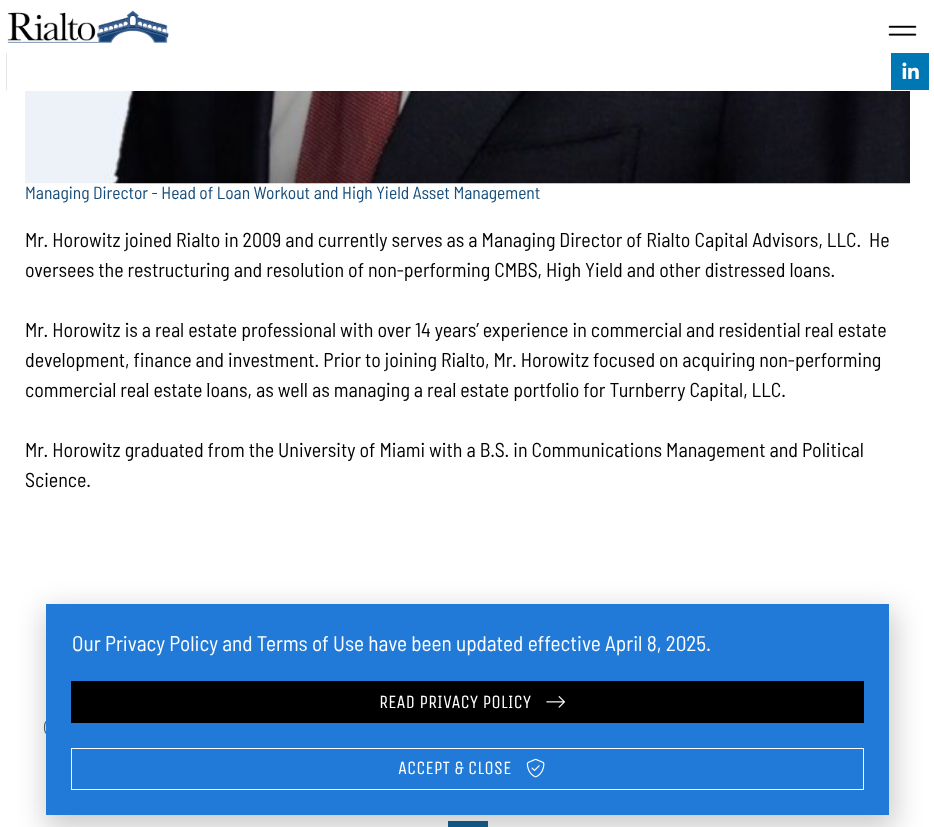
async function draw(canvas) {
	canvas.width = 934;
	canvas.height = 827;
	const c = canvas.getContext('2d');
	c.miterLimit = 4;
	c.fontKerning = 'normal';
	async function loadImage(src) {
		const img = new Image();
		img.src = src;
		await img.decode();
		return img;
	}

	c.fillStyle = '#fff';
	c.fillRect(0, 0, 934, 827);
	c.drawImage(await loadImage('img1.png'), 7, 10, 162, 33);
	c.drawImage(await loadImage('img2.png'), 888, 25, 29, 11);
	c.fillStyle = '#e6e6e6';
	c.fillRect(6, 53, 1, 37);
	c.fillStyle = '#0077b5';
	c.fillRect(891, 53, 38, 37);
	c.drawImage(await loadImage('img3.png'), 902, 62, 17, 17);
	c.drawImage(await loadImage('img4.png'), 25, 91, 885, 93);
	c.font = '17.5px Barlow Semi Condensed';
	c.fillStyle = '#164d7a';
	c.fillText('Managing Director - Head of Loan Workout and High Yield Asset Management', 25, 199);
	c.font = '20px Barlow Semi Condensed';
	c.fillStyle = '#000';
	for (const [text, x, y] of [
		['Mr. Horowitz joined Rialto in 2009 and currently serves as a Managing Director of Rialto Capital Advisors, LLC.  He', 25, 247],
		['oversees the restructuring and resolution of non-performing CMBS, High Yield and other distressed loans.', 25, 277],
		['Mr. Horowitz is a real estate professional with over 14 years’ experience in commercial and residential real estate', 25, 337],
		['development, finance and investment. Prior to joining Rialto, Mr. Horowitz focused on acquiring non-performing', 25, 367],
		['commercial real estate loans, as well as managing a real estate portfolio for Turnberry Capital, LLC.', 25, 397],
		['Mr. Horowitz graduated from the University of Miami with a B.S. in Communications Management and Political', 25, 457],
		['Science.', 25, 487],
	]) {
		c.fillText(text, x, y);
	}
	c.font = '14px Barlow Semi Condensed';
	c.fillStyle = '#54595f';
	c.fillText('(', 44, 732);
	c.fillStyle = '#146295';
	c.fillRect(448, 821, 40, 6);
	c.fillStyle = '#00000033';
	c.filter = 'blur(14.5px)';
	c.beginPath();
	c.rect(45, 610, 850, 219);
	c.fill();
	c.filter = 'none';
	c.fillStyle = '#217ad8';
	c.fillRect(46, 604, 843, 211);
	c.font = '21.25px Barlow Semi Condensed';
	c.fillStyle = '#fff';
	c.fillText('Our Privacy Policy and Terms of Use have been updated effective April 8, 2025.', 72, 651);
	c.fillStyle = '#000';
	c.fillRect(71, 681, 793, 42);
	c.font = '18.75px Unica One';
	c.fillStyle = '#fff';
	c.fillText('READ PRIVACY POLICY', 379, 708);
	c.drawImage(await loadImage('img5.png'), 546, 696, 19, 12);
	c.strokeStyle = '#fff';
	c.strokeRect(71.5, 748.5, 792, 41);
	c.fillText('ACCEPT & CLOSE', 398, 774);
	c.drawImage(await loadImage('img6.png'), 526, 758, 19, 20);
}

draw(document.querySelector('canvas'));
